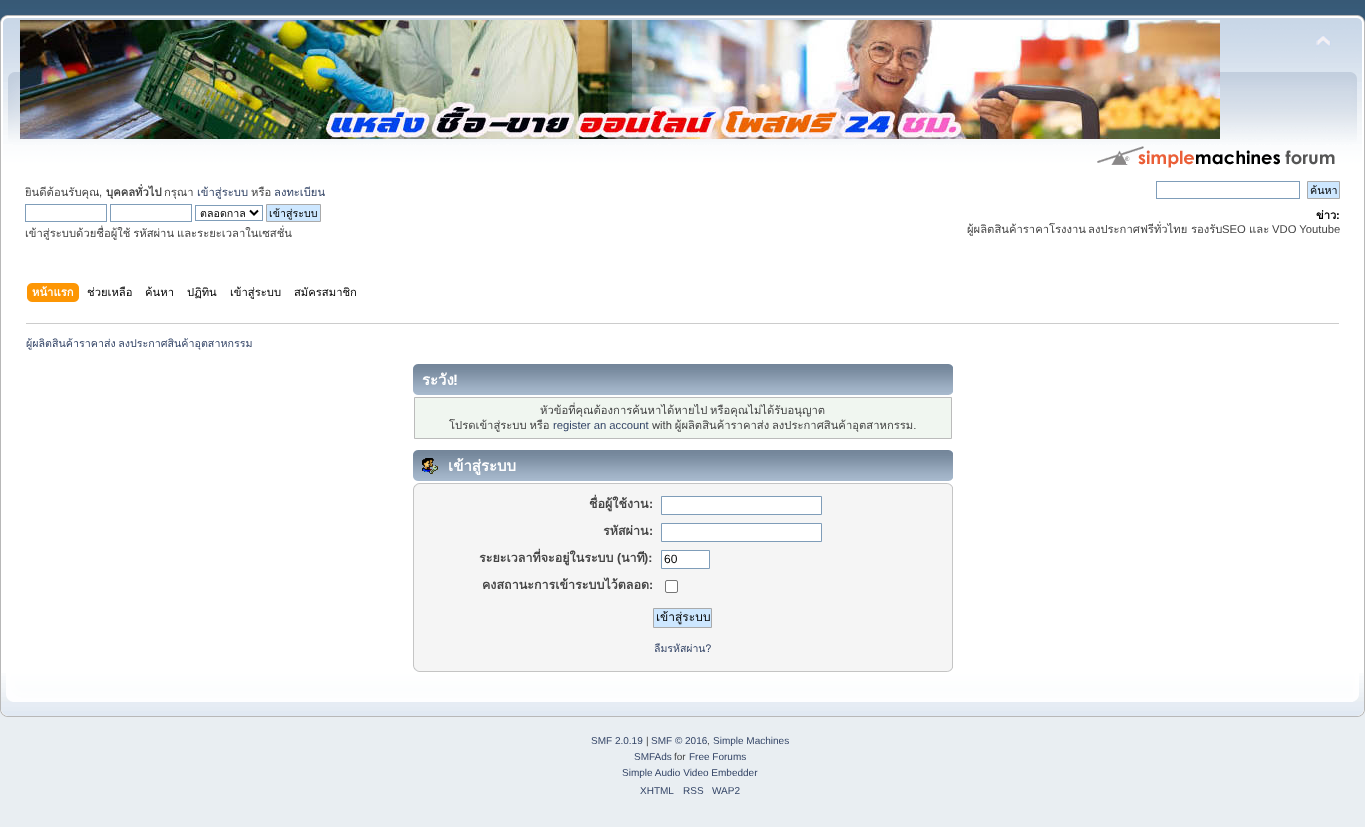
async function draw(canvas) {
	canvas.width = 1365;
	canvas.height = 827;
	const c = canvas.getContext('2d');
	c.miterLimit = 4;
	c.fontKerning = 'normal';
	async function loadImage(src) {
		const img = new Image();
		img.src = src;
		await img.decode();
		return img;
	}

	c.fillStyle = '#e9eef2';
	c.fillRect(0, 0, 1365, 827);
	c.drawImage(await loadImage('img1.png'), 0, 0, 1365, 15);
	c.drawImage(await loadImage('img2.png'), 0, 15, 1351, 302);
	c.drawImage(await loadImage('img3.png'), 1351, 15, 14, 302);
	c.drawImage(await loadImage('img4.png'), 20, 20, 1200, 119);
	c.drawImage(await loadImage('img5.png'), 1316, 35, 15, 12);
	c.drawImage(await loadImage('img6.png'), 1097, 146, 238, 22);
	c.save();
	c.beginPath();
	c.rect(25, 181, 658, 63);
	c.clip();
	c.font = '11.25px Loma';
	c.fillStyle = '#444';
	c.fillText('ยินดีต้อนรับคุณ', 25, 196);
	c.restore();
	c.font = '11.25px Liberation Sans';
	c.fillStyle = '#444';
	c.fillText(',', 99, 196);
	c.font = 'bold 11.25px Loma';
	c.fillText('บุคคลทั่วไป', 106, 196);
	c.font = '11.25px Loma';
	c.fillText('กรุณา', 164, 196);
	c.fillStyle = '#346';
	c.fillText('เข้าสู่ระบบ', 197, 196);
	c.fillStyle = '#444';
	c.fillText('หรือ', 251, 196);
	c.fillStyle = '#346';
	c.fillText('ลงทะเบียน', 274, 196);
	c.strokeStyle = '#7f9db9';
	c.strokeRect(25.5, 204.5, 81, 17);
	c.strokeRect(110.5, 204.5, 81, 17);
	c.strokeRect(195.5, 205.5, 67, 15);
	c.beginPath();
	c.moveTo(250, 210.5);
	c.lineTo(254, 214.5);
	c.lineTo(258, 210.5);
	c.strokeStyle = '#000';
	c.lineWidth = 2;
	c.stroke();
	c.font = '10.7px Loma';
	c.fillStyle = '#000';
	c.fillText('ตลอดกาล', 200, 217);
	c.fillStyle = '#cde7ff';
	c.beginPath();
	c.rect(266.5, 204.5, 54, 17);
	c.fill();
	c.strokeStyle = '#aaa';
	c.lineWidth = 1;
	c.stroke();
	c.fillStyle = '#000';
	c.fillText('เข้าสู่ระบบ', 269, 217);
	c.save();
	c.beginPath();
	c.rect(25, 181, 658, 63);
	c.clip();
	c.wordSpacing = '-1px';
	c.font = '11.25px Loma';
	c.fillStyle = '#444';
	c.fillText('เข้าสู่ระบบด้วยชื่อผู้ใช้ รหัสผ่าน และระยะเวลาในเซสชั่น', 25, 237);
	c.restore();
	c.strokeStyle = '#7f9db9';
	c.strokeRect(1156.5, 181.5, 143, 17);
	c.fillStyle = '#cde7ff';
	c.beginPath();
	c.rect(1307.5, 181.5, 32, 17);
	c.fill();
	c.strokeStyle = '#aaa';
	c.stroke();
	c.save();
	c.beginPath();
	c.rect(1308, 182, 31, 16);
	c.clip();
	c.fillStyle = '#000';
	c.fillText('ค้นหา', 1310, 194);
	c.restore();
	c.font = 'bold 11.25px Loma';
	c.fillStyle = '#000';
	c.fillText('ข่าว', 1316, 219);
	c.font = 'bold 11.25px Liberation Sans';
	c.fillText(':', 1336, 219);
	c.font = '11.25px Loma';
	c.fillStyle = '#444';
	for (const [text, x, y] of [
		['ผู้ผลิตสินค้าราคาโรงงาน', 967, 233],
		['ลงประกาศฟรีทั่วไทย', 1088, 233],
		['รองรับ', 1191, 233],
	]) {
		c.fillText(text, x, y);
	}
	c.font = '11.25px Liberation Sans';
	c.fillText('SEO', 1222, 233);
	c.font = '11.25px Loma';
	c.fillText('และ', 1249, 233);
	c.font = '11.25px Liberation Sans';
	c.fillText('VDO Youtube', 1272, 233);
	c.drawImage(await loadImage('img7.png'), 32, 283, 47, 19);
	c.drawImage(await loadImage('img8.png'), 27, 283, 5, 19);
	c.font = 'bold 11.25px Loma';
	c.fillStyle = '#fff';
	c.fillText('หน้าแรก', 32, 296);
	c.font = '11.25px Loma';
	c.fillStyle = '#000';
	for (const [text, x, y] of [
		['ช่วยเหลือ', 87, 296],
		['ค้นหา', 145, 296],
		['ปฏิทิน', 187, 296],
		['เข้าสู่ระบบ', 230, 296],
		['สมัครสมาชิก', 294, 296],
	]) {
		c.fillText(text, x, y);
	}
	for (const [x, y, w, h, color] of [
		[1, 317, 1363, 356, '#fff'],
		[0, 317, 1, 356, '#b7b7b7'],
		[1364, 317, 1, 356, '#b7b7b7'],
		[26, 323, 1313, 1, '#ccc'],
	]) {
		c.fillStyle = color;
		c.fillRect(x, y, w, h);
	}
	c.save();
	c.beginPath();
	c.rect(26, 324, 1313, 33);
	c.clip();
	c.wordSpacing = '-1px';
	c.font = '10.7px Loma';
	c.fillStyle = '#346';
	c.fillText('ผู้ผลิตสินค้าราคาส่ง ลงประกาศสินค้าอุตสาหกรรม', 26, 347);
	c.restore();
	c.drawImage(await loadImage('img9.png'), 413, 364, 535, 31);
	c.drawImage(await loadImage('img10.png'), 948, 364, 5, 31);
	c.font = 'bold 15px Loma';
	c.fillStyle = '#fff';
	c.fillText('ระวัง', 422, 385);
	c.font = 'bold 15px Liberation Sans';
	c.fillText('!', 453, 385);
	c.fillStyle = '#f0f6f0';
	c.beginPath();
	c.rect(414.5, 397.5, 537, 41);
	c.fill();
	c.strokeStyle = '#bbb';
	c.stroke();
	c.wordSpacing = '-1px';
	c.font = '11.25px Loma';
	c.fillStyle = '#444';
	c.fillText('หัวข้อที่คุณต้องการค้นหาได้หายไป หรือคุณไม่ได้รับอนุญาต', 540, 414);
	c.fillText('โปรดเข้าสู่ระบบ หรือ', 449, 429);
	c.wordSpacing = '0px';
	c.font = '11.25px Liberation Sans';
	c.fillStyle = '#346';
	c.fillText('register an account', 553, 429);
	c.wordSpacing = '-1px';
	c.font = '11.25px Loma';
	c.fillStyle = '#444';
	c.fillText('with ผู้ผลิตสินค้าราคาส่ง ลงประกาศสินค้าอุตสาหกรรม.', 652, 429);
	c.drawImage(await loadImage('img9.png'), 413, 450, 535, 31);
	c.drawImage(await loadImage('img10.png'), 948, 450, 5, 31);
	c.drawImage(await loadImage('img11.png'), 422, 458, 16, 16);
	c.wordSpacing = '0px';
	c.font = 'bold 15px Loma';
	c.fillStyle = '#fff';
	c.fillText('เข้าสู่ระบบ', 448, 471);
	c.drawImage(await loadImage('img12.png'), 413, 483, 534, 11);
	c.drawImage(await loadImage('img13.png'), 947, 483, 6, 11);
	for (const [x, y, w, h, color] of [
		[414, 494, 538, 167, '#f5f5f5'],
		[952, 494, 1, 167, '#c5c5c5'],
		[413, 494, 1, 167, '#c5c5c5'],
	]) {
		c.fillStyle = color;
		c.fillRect(x, y, w, h);
	}
	c.font = 'bold 12.5px Loma';
	c.fillStyle = '#444';
	c.fillText('ชื่อผู้ใช้งาน', 589, 508);
	c.font = 'bold 12.5px Liberation Sans';
	c.fillText(':', 649, 508);
	c.fillStyle = '#fff';
	c.beginPath();
	c.rect(661.5, 496.5, 160, 18);
	c.fill();
	c.strokeStyle = '#7f9db9';
	c.stroke();
	c.font = 'bold 12.5px Loma';
	c.fillStyle = '#444';
	c.fillText('รหัสผ่าน', 603, 535);
	c.font = 'bold 12.5px Liberation Sans';
	c.fillText(':', 649, 535);
	c.fillStyle = '#fff';
	c.beginPath();
	c.rect(661.5, 523.5, 160, 18);
	c.fill();
	c.stroke();
	c.font = 'bold 12.5px Loma';
	c.fillStyle = '#444';
	c.fillText('ระยะเวลาที่จะอยู่ในระบบ', 479, 562);
	c.font = 'bold 12.5px Liberation Sans';
	c.fillText('(', 617, 562);
	c.font = 'bold 12.5px Loma';
	c.fillText('นาที', 621, 562);
	c.font = 'bold 12.5px Liberation Sans';
	c.fillText('):', 644, 562);
	c.fillStyle = '#fff';
	c.beginPath();
	c.rect(661.5, 550.5, 48, 18);
	c.fill();
	c.stroke();
	c.font = '12px Liberation Sans';
	c.fillStyle = '#000';
	c.fillText('60', 664, 563);
	c.font = 'bold 12.5px Loma';
	c.fillStyle = '#444';
	c.fillText('คงสถานะการเข้าระบบไว้ตลอด', 482, 589);
	c.font = 'bold 12.5px Liberation Sans';
	c.fillText(':', 649, 589);
	c.fillStyle = '#fff';
	c.beginPath();
	c.roundRect(665.5, 580.5, 12, 12, 1.5);
	c.fill();
	c.strokeStyle = '#767676';
	c.stroke();
	c.fillStyle = '#cde7ff';
	c.beginPath();
	c.rect(653.5, 608.5, 58, 19);
	c.fill();
	c.strokeStyle = '#aaa';
	c.stroke();
	c.font = '12px Loma';
	c.fillStyle = '#000';
	c.fillText('เข้าสู่ระบบ', 656, 621);
	c.font = '10.5px Loma';
	c.fillStyle = '#346';
	c.fillText('ลืมรหัสผ่าน?', 654, 652);
	c.drawImage(await loadImage('img14.png'), 413, 661, 534, 11);
	c.drawImage(await loadImage('img15.png'), 947, 661, 6, 11);
	c.drawImage(await loadImage('img16.png'), 0, 673, 1353, 44);
	c.drawImage(await loadImage('img17.png'), 1353, 673, 12, 44);
	c.font = '10px Liberation Sans';
	c.fillText('SMF 2.0.19', 591, 744);
	c.fillStyle = '#444';
	c.fillText('|', 646, 744);
	c.fillStyle = '#346';
	c.fillText('SMF © 2016', 651, 744);
	c.fillStyle = '#444';
	c.fillText(',', 707, 744);
	c.fillStyle = '#346';
	c.fillText('Simple Machines', 713, 744);
	c.fillText('SMFAds', 634, 760);
	c.fillStyle = '#444';
	c.fillText('for', 674, 760);
	c.fillStyle = '#346';
	for (const [text, x, y] of [
		['Free Forums', 689, 760],
		['Simple Audio Video Embedder', 622, 776],
		['XHTML', 640, 794],
		['RSS', 683, 794],
		['WAP2', 712, 794],
	]) {
		c.fillText(text, x, y);
	}
}

draw(document.querySelector('canvas'));
